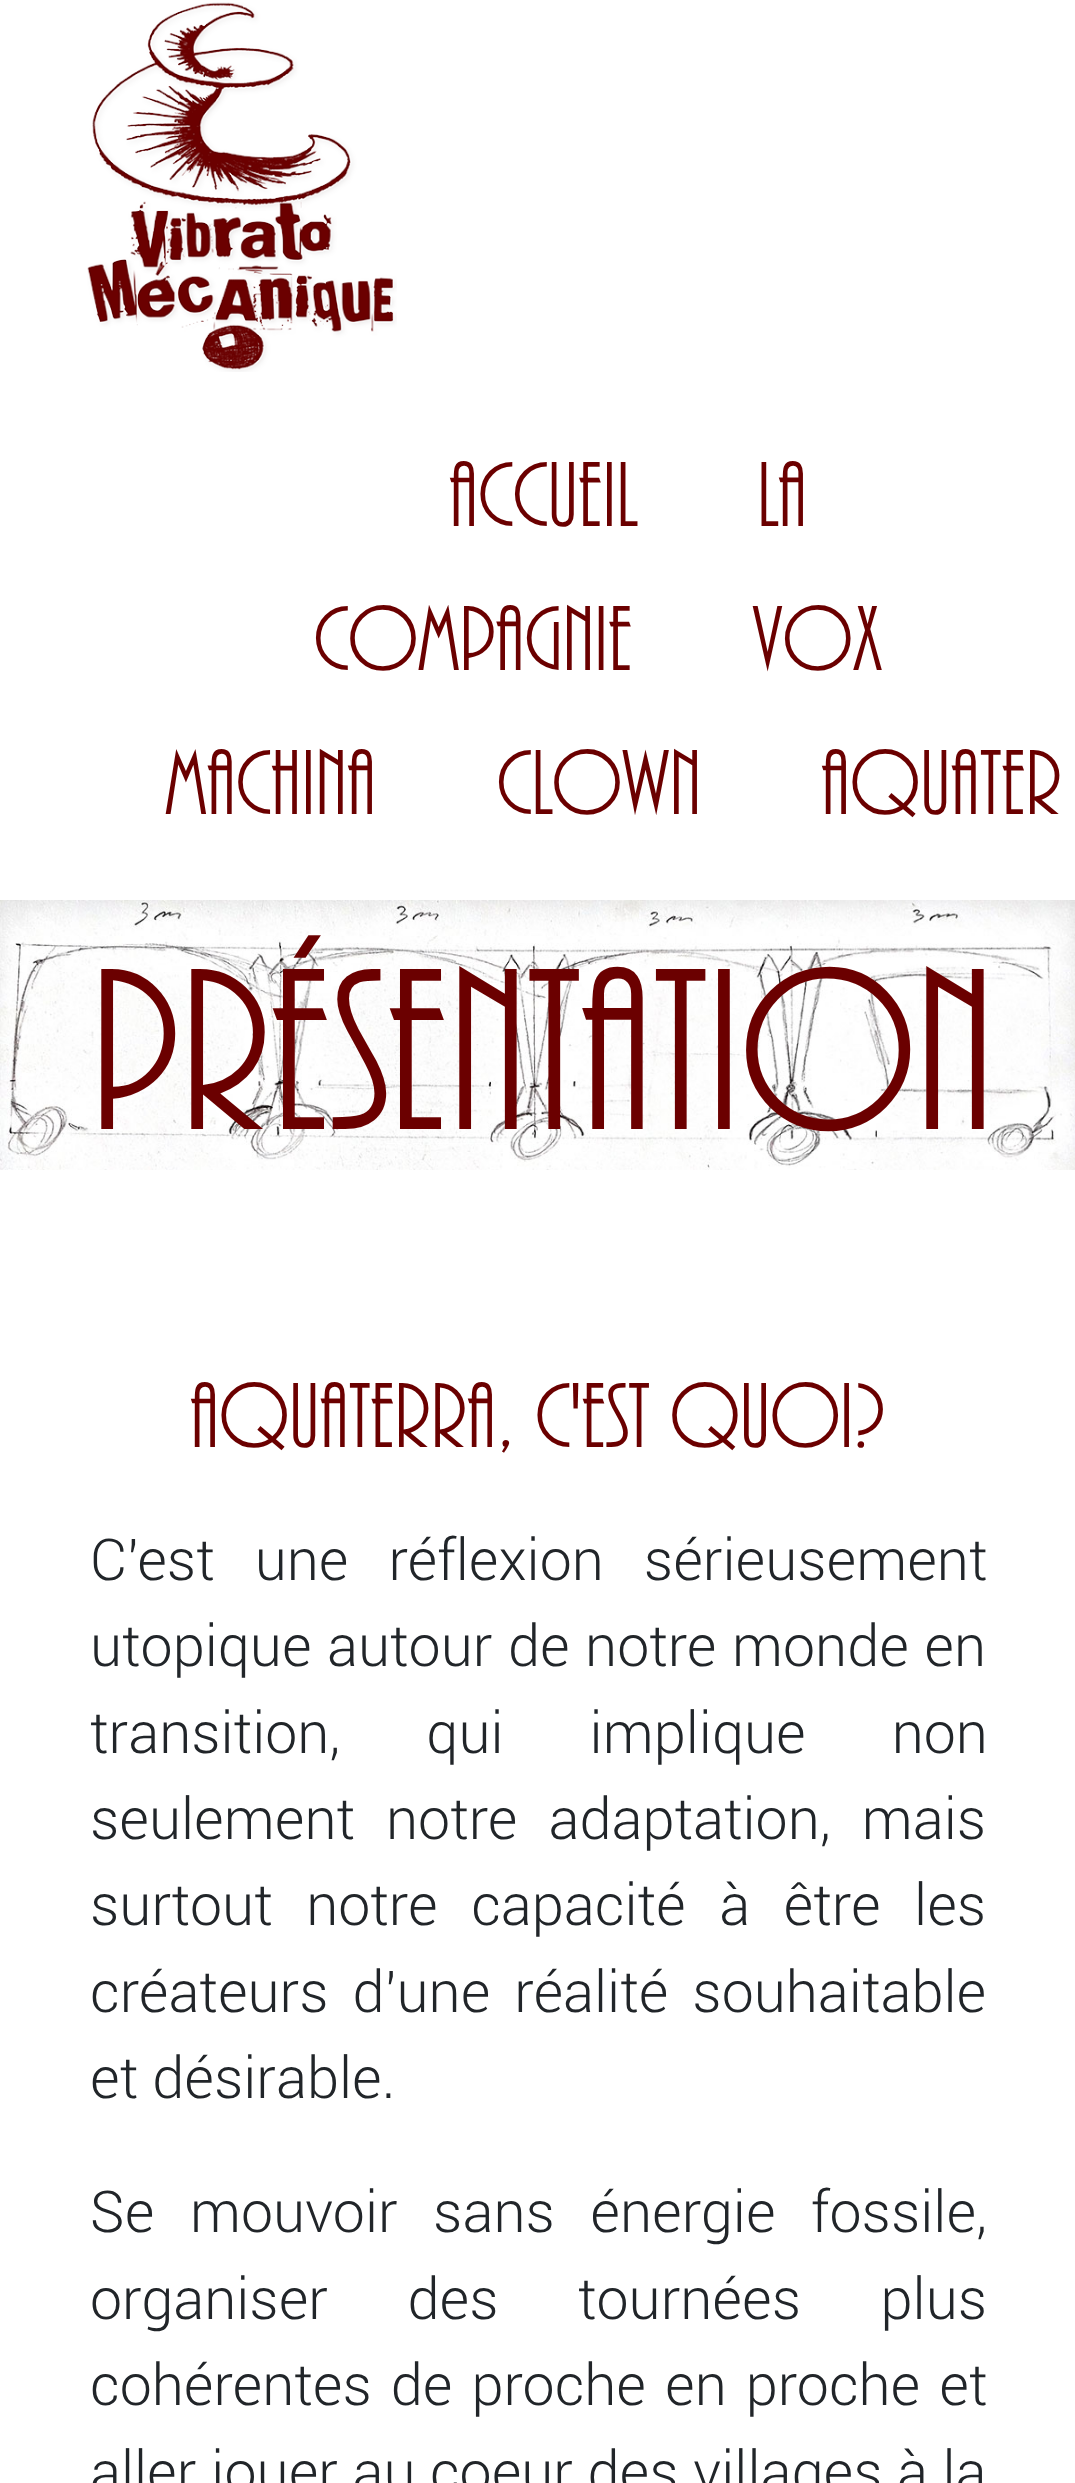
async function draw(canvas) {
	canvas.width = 1075;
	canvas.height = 2483;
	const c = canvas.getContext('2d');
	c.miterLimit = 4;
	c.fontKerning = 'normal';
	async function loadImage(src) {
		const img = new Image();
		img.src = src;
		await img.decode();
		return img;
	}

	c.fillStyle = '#fff';
	c.fillRect(0, 0, 1075, 2483);
	c.drawImage(await loadImage('img1.png'), 87, 2, 310, 370);
	c.font = '100 96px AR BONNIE';
	c.fillStyle = '#6b0000';
	for (const [text, x, y] of [
		['Accueil', 449, 526],
		['La', 757, 526],
		['Compagnie', 314, 670],
		['Vox', 752, 670],
		['Machina', 165, 814],
		['Clown', 497, 814],
		['AquaTer', 821, 814],
	]) {
		c.fillText(text, x, y);
	}
	c.drawImage(await loadImage('img2.png'), 0, 900, 1075, 270);
	c.font = '100 240px AR BONNIE';
	c.fillText('Présentation', 90, 1129);
	c.font = '100 96px AR BONNIE';
	c.fillText('AquaTerra, c\'est quoi?', 190, 1447);
	c.wordSpacing = '26px';
	c.font = '300 57.6px Roboto';
	c.fillStyle = '#212529';
	c.fillText('C\'est une réflexion sérieusement', 90, 1580);
	c.wordSpacing = '1.5px';
	c.fillText('utopique autour de notre monde en', 90, 1666);
	c.wordSpacing = '72px';
	c.fillText('transition, qui implique non', 90, 1753);
	c.wordSpacing = '17px';
	c.fillText('seulement notre adaptation, mais', 90, 1839);
	c.wordSpacing = '19.5px';
	c.fillText('surtout notre capacité à être les', 90, 1925);
	c.wordSpacing = '10px';
	c.fillText('créateurs d\'une réalité souhaitable', 90, 2012);
	c.wordSpacing = '0px';
	c.fillText('et désirable.', 90, 2098);
	c.wordSpacing = '21.5px';
	c.fillText('Se mouvoir sans énergie fossile,', 90, 2232);
	c.wordSpacing = '65.5px';
	c.fillText('organiser des tournées plus', 90, 2319);
	c.wordSpacing = '5px';
	c.fillText('cohérentes de proche en proche et', 90, 2405);
	c.wordSpacing = '0.5px';
	c.fillText('aller jouer au coeur des villages à la', 90, 2492);
}

draw(document.querySelector('canvas'));
